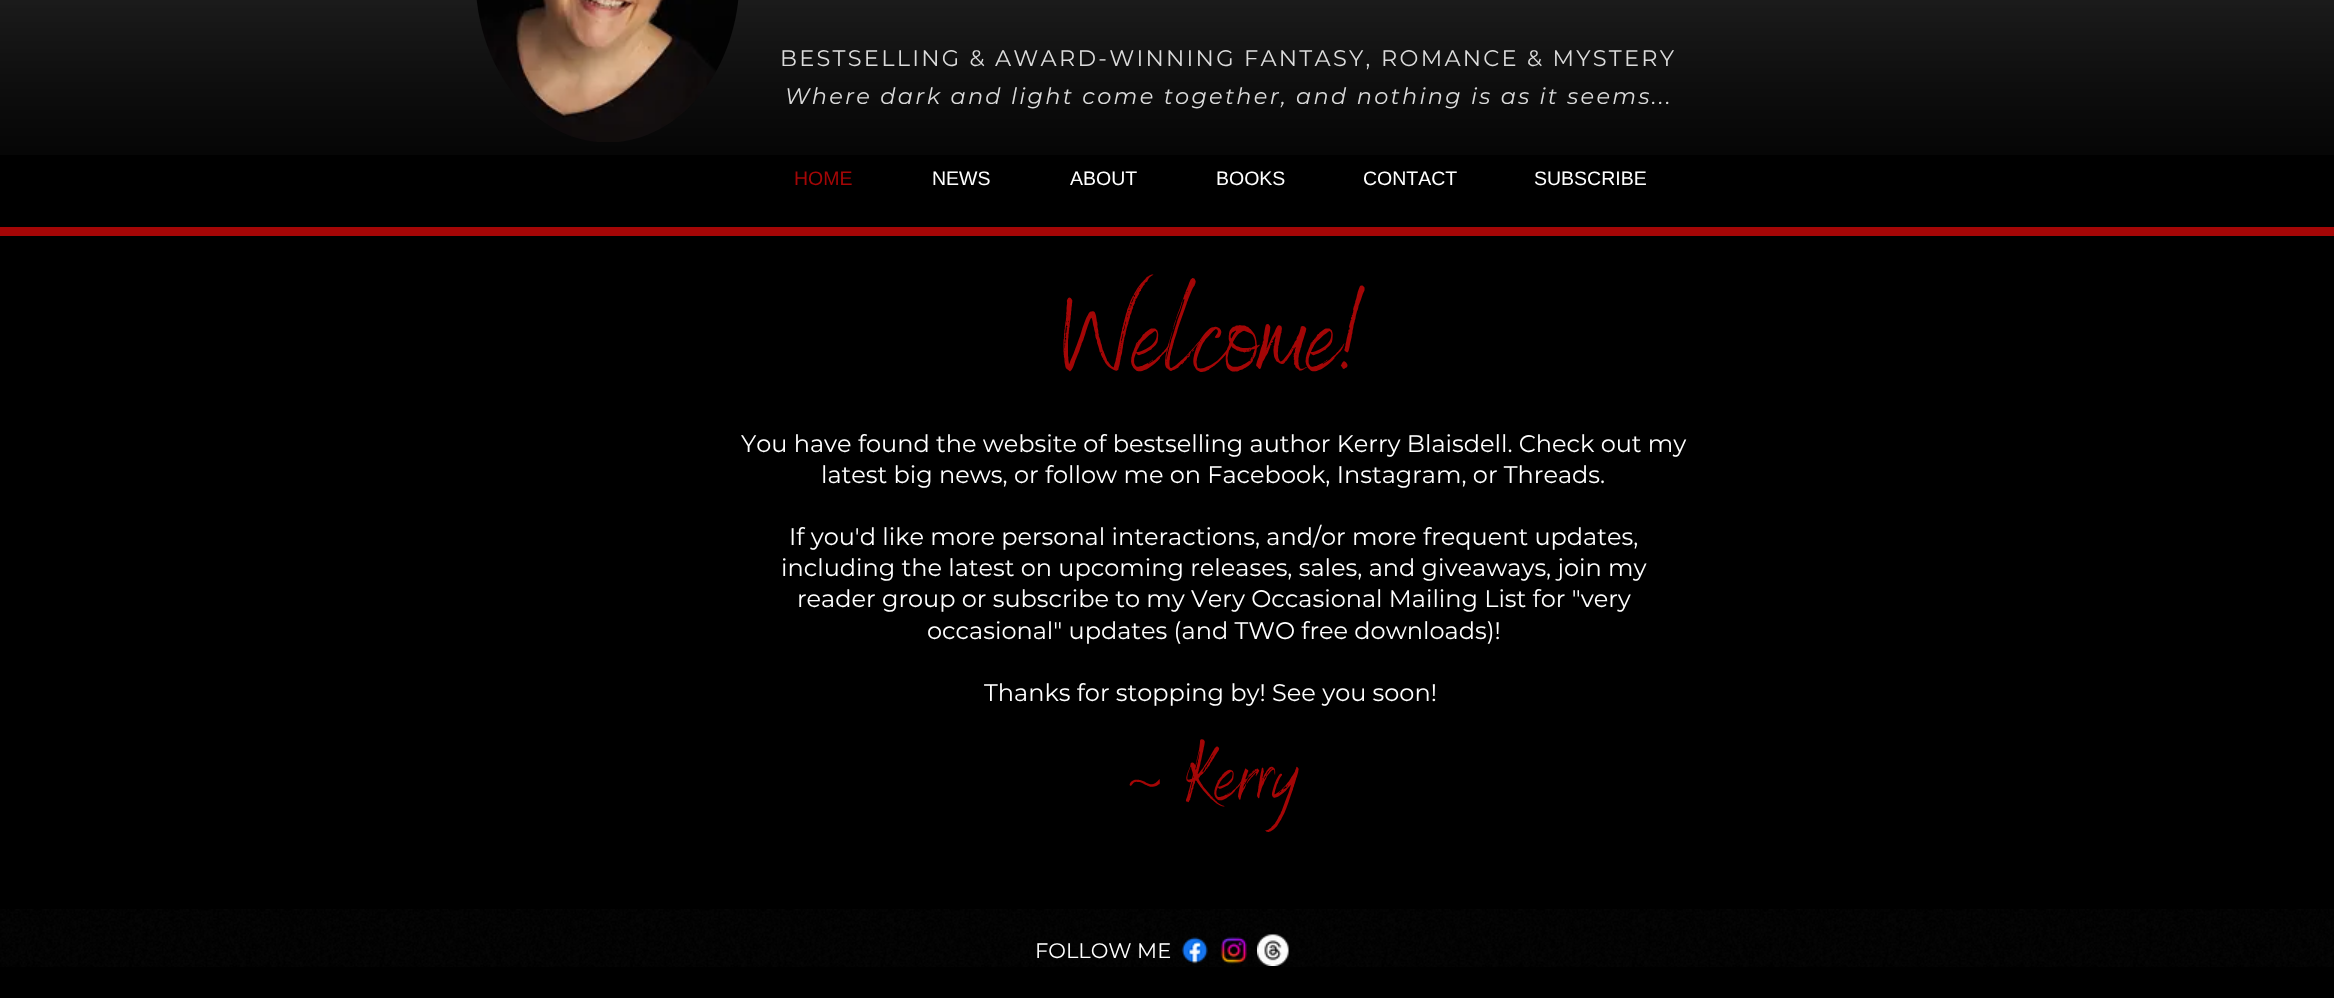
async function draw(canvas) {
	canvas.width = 2334;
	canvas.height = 998;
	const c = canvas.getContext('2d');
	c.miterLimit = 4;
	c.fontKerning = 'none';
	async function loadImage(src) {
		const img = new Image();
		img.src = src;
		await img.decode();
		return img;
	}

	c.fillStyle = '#000';
	c.fillRect(0, 0, 2334, 998);
	c.drawImage(await loadImage('img1.png'), 0, 0, 2334, 155);
	c.fillStyle = '#a40606';
	c.fillRect(0, 227, 2334, 9);
	c.drawImage(await loadImage('img2.png'), 476, 0, 263, 142);
	c.letterSpacing = '2.25px';
	c.font = '22.5px Montserrat';
	c.fillStyle = '#dbdbdb';
	c.fillText('BESTSELLING & AWARD-WINNING FANTASY,', 780, 66);
	c.fillText('ROMANCE & MYSTERY', 1381, 66);
	c.font = 'italic 22.5px Montserrat';
	c.fillText('Where dark and light come together, and nothing is as it seems...', 785, 104);
	c.letterSpacing = '0px';
	c.font = '19.5px Liberation Sans';
	c.fillStyle = '#a40606';
	c.fillText('HOME', 794, 185);
	c.fillStyle = '#fff';
	for (const [text, x, y] of [
		['NEWS', 932, 185],
		['ABOUT', 1070, 185],
		['BOOKS', 1216, 185],
		['CONTACT', 1363, 185],
		['SUBSCRIBE', 1534, 185],
	]) {
		c.fillText(text, x, y);
	}
	c.font = '115.5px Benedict';
	c.fillStyle = '#a40606';
	c.fillText('Welcome!', 1063, 368);
	c.font = '24px Montserrat';
	c.fillStyle = '#fff';
	for (const [text, x, y] of [
		['You have found the website of bestselling author Kerry Blaisdell. Check out my', 741, 452],
		['latest big news, or follow me on Facebook, Instagram, or Threads.', 821, 483],
		['If you\'d like more personal interactions, and/or more', 789, 545],
		['frequent updates,', 1423, 545],
		['including the latest on upcoming releases, sales, and giveaways, join my', 781, 576],
		['reader group or subscribe to my Very Occasional Mailing List for "very', 797, 607],
		['occasional" updates (and TWO free downloads)!', 927, 639],
		['Thanks for stopping by! See you soon!', 984, 701],
	]) {
		c.fillText(text, x, y);
	}
	c.font = '82.5px Benedict';
	c.fillStyle = '#a40606';
	c.fillText('~ Kerry', 1128, 798);
	c.drawImage(await loadImage('img3.png'), 0, 909, 2334, 58);
	c.font = '21px Montserrat';
	c.fillStyle = '#fff';
	c.fillText('FOLLOW ME', 1035, 958);
	c.drawImage(await loadImage('img4.png'), 1181, 937, 27, 27);
	c.drawImage(await loadImage('img5.png'), 1220, 937, 27, 27);
	c.drawImage(await loadImage('img6.png'), 1257, 934, 32, 32);
}

draw(document.querySelector('canvas'));
